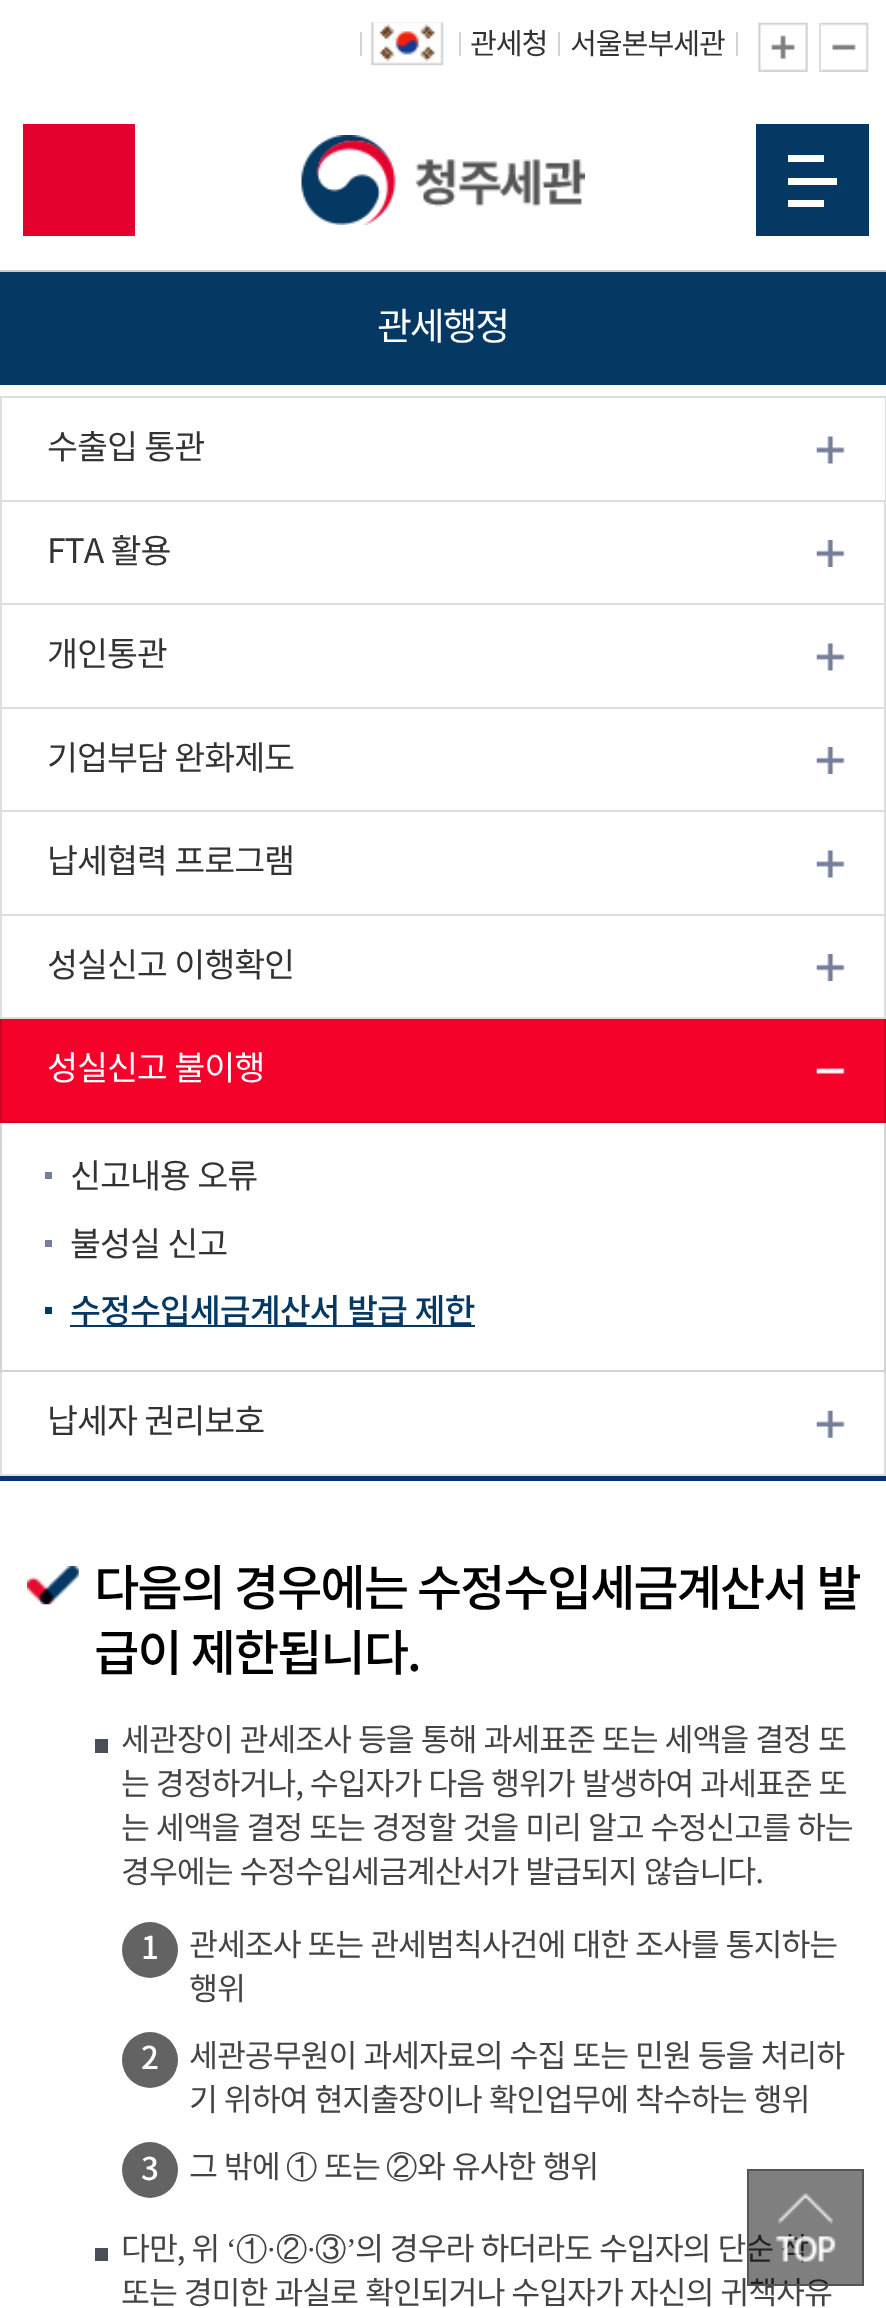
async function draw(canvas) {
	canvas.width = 886;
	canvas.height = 2308;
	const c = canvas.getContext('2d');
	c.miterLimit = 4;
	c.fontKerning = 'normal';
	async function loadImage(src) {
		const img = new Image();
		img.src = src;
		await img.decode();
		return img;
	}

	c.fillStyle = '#fff';
	c.fillRect(0, 0, 886, 2308);
	c.fillStyle = '#d3d3d3';
	c.fillRect(360, 32, 2, 24);
	c.drawImage(await loadImage('img1.png'), 371, 22, 73, 44);
	c.fillRect(459, 32, 2, 24);
	c.letterSpacing = '-1.1px';
	c.font = '29.25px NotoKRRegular';
	c.fillStyle = '#333';
	c.fillText('관세청', 470, 54);
	c.fillStyle = '#d3d3d3';
	c.fillRect(558, 32, 2, 24);
	c.fillStyle = '#333';
	c.fillText('서울본부세관', 570, 54);
	c.fillStyle = '#d3d3d3';
	c.fillRect(736, 32, 2, 24);
	c.drawImage(await loadImage('img2.png'), 758, 22, 50, 50);
	c.drawImage(await loadImage('img3.png'), 821, 22, 48, 50);
	c.fillStyle = '#ddd';
	c.fillRect(819, 23, 2, 49);
	c.fillStyle = '#e4012e';
	c.fillRect(23, 124, 112, 112);
	c.drawImage(await loadImage('img4.png'), 301, 135, 284, 90);
	for (const [x, y, w, h, color] of [
		[756, 124, 113, 112, '#053863'],
		[788, 155, 36, 7, '#fff'],
		[788, 178, 49, 7, '#fff'],
		[788, 200, 36, 7, '#fff'],
		[0, 270, 886, 2, '#ccc'],
		[0, 272, 886, 113, '#053863'],
	]) {
		c.fillStyle = color;
		c.fillRect(x, y, w, h);
	}
	c.letterSpacing = '-2.25px';
	c.font = '38px NotoKRRegular';
	c.fillStyle = '#fff';
	c.fillText('관세행정', 377, 340);
	c.fillStyle = '#0a326c';
	c.fillRect(0, 1476, 886, 5);
	c.drawImage(await loadImage('img5.png'), 816, 436, 29, 28);
	c.strokeStyle = '#dedede';
	c.lineWidth = 2;
	c.strokeRect(1, 397, 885, 104);
	c.letterSpacing = '-1.1px';
	c.wordSpacing = '1px';
	c.font = '33.75px NotoKRRegular';
	c.fillStyle = '#333';
	c.fillText('수출입 통관', 47, 459);
	c.drawImage(await loadImage('img6.png'), 816, 540, 29, 27);
	for (const [x, y, w, h, color] of [
		[884, 502, 2, 517, '#dedede'],
		[0, 603, 886, 2, '#dedede'],
		[0, 502, 2, 103, '#dedede'],
	]) {
		c.fillStyle = color;
		c.fillRect(x, y, w, h);
	}
	c.fillStyle = '#333';
	c.fillText('FTA 활용', 47, 563);
	c.drawImage(await loadImage('img5.png'), 816, 643, 29, 28);
	c.fillStyle = '#dedede';
	c.fillRect(0, 707, 886, 2);
	c.fillRect(0, 605, 2, 104);
	c.wordSpacing = '0px';
	c.fillStyle = '#333';
	c.fillText('개인통관', 47, 666);
	c.drawImage(await loadImage('img6.png'), 816, 747, 29, 27);
	c.fillStyle = '#dedede';
	c.fillRect(0, 810, 886, 2);
	c.fillRect(0, 709, 2, 103);
	c.wordSpacing = '1px';
	c.fillStyle = '#333';
	c.fillText('기업부담 완화제도', 47, 770);
	c.drawImage(await loadImage('img5.png'), 816, 850, 29, 28);
	c.fillStyle = '#dedede';
	c.fillRect(0, 914, 886, 2);
	c.fillRect(0, 812, 2, 104);
	c.fillStyle = '#333';
	c.fillText('납세협력 프로그램', 47, 873);
	c.drawImage(await loadImage('img6.png'), 816, 954, 29, 27);
	c.fillStyle = '#dedede';
	c.fillRect(0, 1017, 886, 2);
	c.fillRect(0, 916, 2, 103);
	c.fillStyle = '#333';
	c.fillText('성실신고 이행확인', 47, 977);
	c.fillStyle = '#f5012a';
	c.fillRect(2, 1019, 882, 102);
	c.drawImage(await loadImage('img7.png'), 816, 1068, 29, 6);
	for (const [x, y, w, h, color] of [
		[884, 1019, 2, 104, '#d00023'],
		[0, 1121, 886, 2, '#d00023'],
		[0, 1019, 2, 104, '#d00023'],
	]) {
		c.fillStyle = color;
		c.fillRect(x, y, w, h);
	}
	c.fillStyle = '#fff';
	c.fillText('성실신고 불이행', 47, 1080);
	for (const [x, y, w, h, color] of [
		[884, 1123, 2, 250, '#d3d3d3'],
		[0, 1370, 886, 2, '#d3d3d3'],
		[0, 1123, 2, 250, '#d3d3d3'],
		[45, 1172, 7, 7, '#757e9b'],
	]) {
		c.fillStyle = color;
		c.fillRect(x, y, w, h);
	}
	c.fillStyle = '#333';
	c.fillText('신고내용 오류', 70, 1188);
	c.fillStyle = '#757e9b';
	c.fillRect(45, 1240, 7, 7);
	c.fillStyle = '#333';
	c.fillText('불성실 신고', 70, 1256);
	c.fillStyle = '#053863';
	c.fillRect(45, 1307, 7, 7);
	c.fillRect(70, 1325, 405, 2);
	c.font = '500 33.75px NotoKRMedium';
	c.fillText('수정수입세금계산서 발급 제한', 70, 1323);
	c.drawImage(await loadImage('img8.png'), 816, 1410, 29, 28);
	for (const [x, y, w, h, color] of [
		[884, 1373, 2, 103, '#dedede'],
		[0, 1474, 886, 2, '#dedede'],
		[0, 1373, 2, 103, '#dedede'],
	]) {
		c.fillStyle = color;
		c.fillRect(x, y, w, h);
	}
	c.font = '33.75px NotoKRRegular';
	c.fillStyle = '#333';
	c.fillText('납세자 권리보호', 47, 1433);
	c.drawImage(await loadImage('img9.png'), 27, 1566, 52, 39);
	c.letterSpacing = '-2.25px';
	c.font = '500 49.5px NotoKRMedium';
	c.fillStyle = '#000';
	c.fillText('다음의 경우에는 수정수입세금계산서 발', 94, 1606);
	c.fillText('급이 제한됩니다.', 94, 1671);
	c.fillStyle = '#4a4e59';
	c.fillRect(95, 1739, 13, 14);
	c.letterSpacing = '-1.1px';
	c.font = '31.5px NotoKRRegular';
	c.fillStyle = '#444';
	for (const [text, x, y] of [
		['세관장이 관세조사 등을 통해 과세표준 또는 세액을 결정 또', 121, 1751],
		['는 경정하거나, 수입자가 다음 행위가 발생하여 과세표준 또', 121, 1795],
		['는 세액을 결정 또는 경정할 것을 미리 알고 수정신고를 하는', 121, 1839],
		['경우에는 수정수입세금계산서가 발급되지 않습니다.', 121, 1883],
	]) {
		c.fillText(text, x, y);
	}
	c.fillStyle = '#636363';
	c.beginPath();
	c.arc(150, 1950, 28, 0, 2 * Math.PI);
	c.fill();
	c.wordSpacing = '0px';
	c.font = '500 31.5px NotoKRMedium';
	c.fillStyle = '#fff';
	c.fillText('1', 141, 1959);
	c.wordSpacing = '1px';
	c.font = '31.5px NotoKRRegular';
	c.fillStyle = '#444';
	c.fillText('관세조사 또는 관세범칙사건에 대한 조사를 통지하는', 189, 1956);
	c.wordSpacing = '0px';
	c.fillText('행위', 189, 2000);
	c.fillStyle = '#636363';
	c.beginPath();
	c.arc(150, 2060, 28, 0, 2 * Math.PI);
	c.fill();
	c.font = '500 31.5px NotoKRMedium';
	c.fillStyle = '#fff';
	c.fillText('2', 141, 2069);
	c.wordSpacing = '1px';
	c.font = '31.5px NotoKRRegular';
	c.fillStyle = '#444';
	c.fillText('세관공무원이 과세자료의 수집 또는 민원 등을 처리하', 189, 2067);
	c.fillText('기 위하여 현지출장이나 확인업무에 착수하는 행위', 189, 2111);
	c.fillStyle = '#636363';
	c.beginPath();
	c.arc(150, 2170, 28, 0, 2 * Math.PI);
	c.fill();
	c.wordSpacing = '0px';
	c.font = '500 31.5px NotoKRMedium';
	c.fillStyle = '#fff';
	c.fillText('3', 141, 2180);
	c.wordSpacing = '1px';
	c.font = '31.5px NotoKRRegular';
	c.fillStyle = '#444';
	c.fillText('그 밖에', 189, 2178);
	c.wordSpacing = '0px';
	c.font = '500 31.5px WenQuanYi Zen Hei';
	c.fillText('①', 286, 2178);
	c.font = '31.5px NotoKRRegular';
	c.fillText('또는', 324, 2178);
	c.font = '500 31.5px WenQuanYi Zen Hei';
	c.fillText('②', 386, 2178);
	c.wordSpacing = '1px';
	c.font = '31.5px NotoKRRegular';
	c.fillText('와 유사한 행위', 417, 2178);
	c.fillText('다만, 위', 121, 2260);
	c.wordSpacing = '0px';
	c.font = '31.5px Liberation Serif';
	c.fillText('‘', 226, 2260);
	c.font = '500 31.5px WenQuanYi Zen Hei';
	for (const [text, x, y] of [
		['①', 236, 2260],
		['②', 276, 2260],
		['③', 315, 2260],
	]) {
		c.fillText(text, x, y);
	}
	c.font = '31.5px Liberation Serif';
	c.fillText('’', 346, 2260);
	c.wordSpacing = '1px';
	c.font = '31.5px NotoKRRegular';
	c.fillText('의 경우라 하더라도 수입자의 단순 착', 355, 2260);
	c.fillStyle = '#4a4e59';
	c.fillRect(95, 2248, 13, 13);
	c.wordSpacing = '0px';
	c.font = '31.5px Liberation Serif';
	c.fillStyle = '#444';
	c.fillText('·', 266, 2260);
	c.fillText('·', 306, 2260);
	c.wordSpacing = '1px';
	c.font = '31.5px NotoKRRegular';
	c.fillText('또는 경미한 과실로 확인되거나 수입자가 자신의 귀책사유', 121, 2304);
	c.fillStyle = '#00000080';
	c.fillRect(749, 2171, 113, 113);
	c.drawImage(await loadImage('img10.png'), 775, 2193, 61, 69);
	c.strokeStyle = '#555';
	c.strokeRect(748, 2170, 115, 115);
}

draw(document.querySelector('canvas'));
